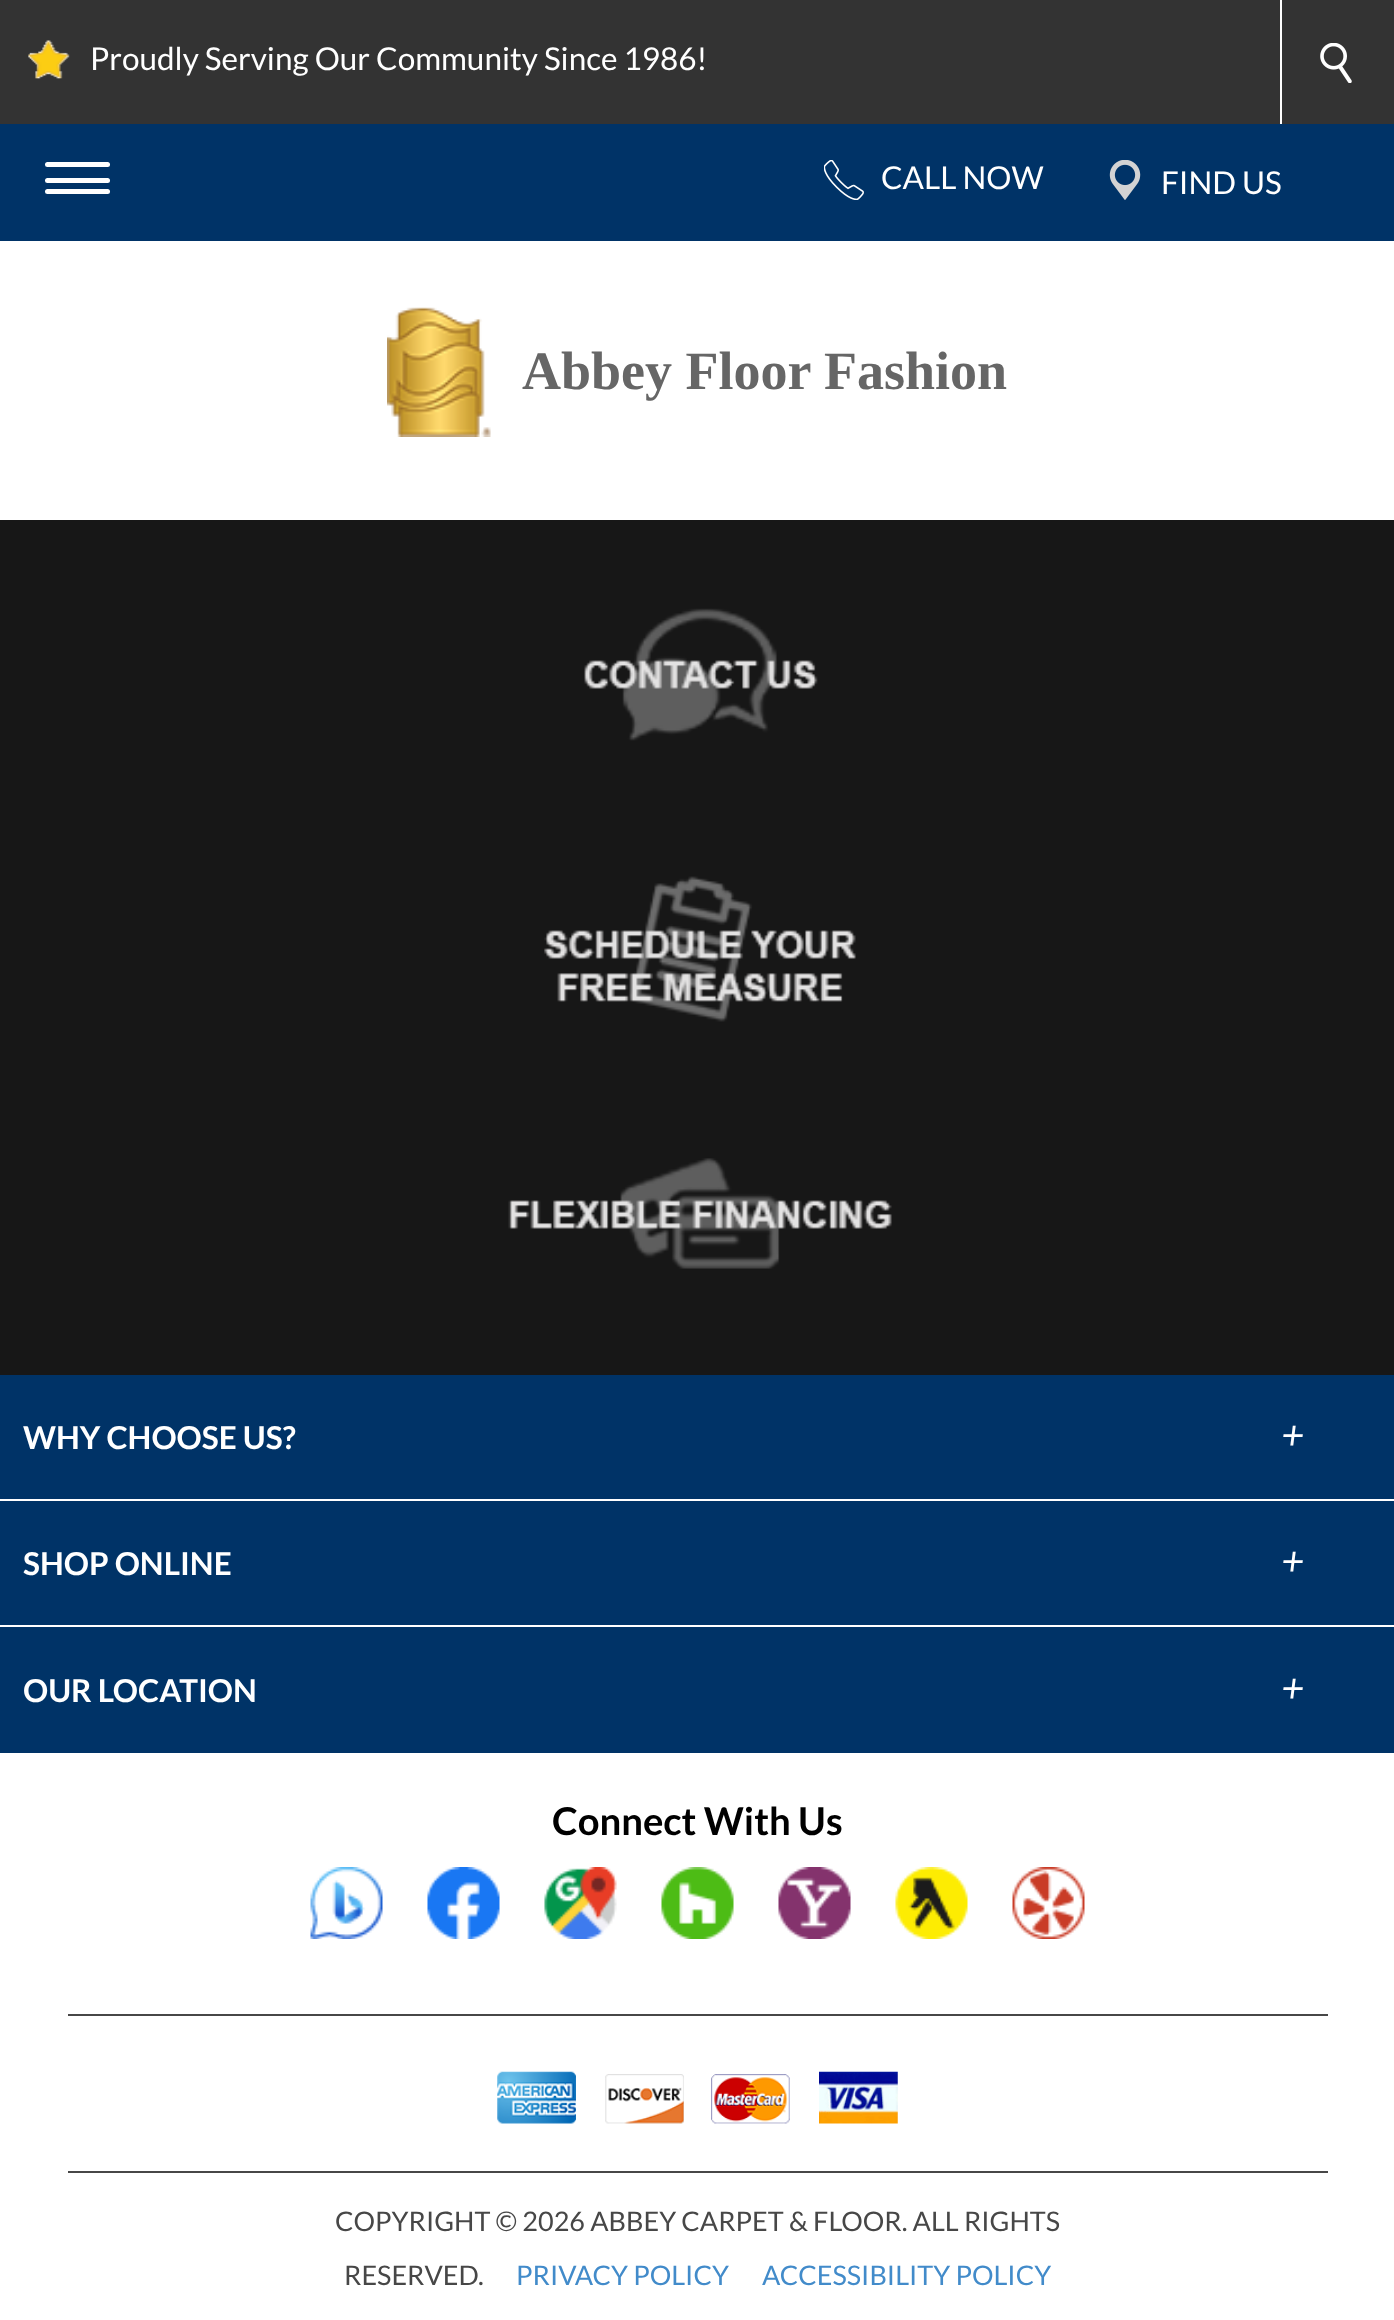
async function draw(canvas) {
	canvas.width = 1394;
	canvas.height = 2320;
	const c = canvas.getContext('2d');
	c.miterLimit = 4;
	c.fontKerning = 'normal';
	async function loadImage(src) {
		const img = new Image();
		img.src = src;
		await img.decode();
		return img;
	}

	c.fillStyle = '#fff';
	c.fillRect(0, 0, 1394, 2320);
	c.fillStyle = '#333';
	c.fillRect(0, 0, 1394, 124);
	c.drawImage(await loadImage('img1.png'), 28, 40, 42, 39);
	c.font = '31.5px Lato';
	c.fillStyle = '#fff';
	c.fillText('Proudly Serving Our Community Since 1986!', 90, 70);
	c.fillStyle = '#003367';
	c.fillRect(0, 124, 1394, 117);
	c.fillStyle = '#fff';
	c.beginPath();
	c.roundRect(45, 162, 65, 5, 2.5);
	c.fill();
	c.beginPath();
	c.roundRect(74, 178, 36, 5, 2.5);
	c.fill();
	c.beginPath();
	c.roundRect(45, 178, 36, 5, 2.5);
	c.fill();
	c.beginPath();
	c.roundRect(45, 189, 65, 5, 2.5);
	c.fill();
	c.fillRect(1280, 0, 2, 124);
	c.drawImage(await loadImage('img2.png'), 1320, 43, 32, 40);
	c.drawImage(await loadImage('img3.png'), 824, 160, 40, 40);
	c.fillText('CALL NOW', 881, 189);
	c.drawImage(await loadImage('img4.png'), 1109, 160, 32, 40);
	c.fillText('FIND US', 1161, 194);
	c.drawImage(await loadImage('img5.png'), 387, 307, 104, 130);
	c.font = 'bold 54px Liberation Serif';
	c.fillStyle = '#666';
	c.fillText('Abbey Floor Fashion', 522, 389);
	c.fillStyle = '#171717';
	c.fillRect(0, 520, 1394, 855);
	c.drawImage(await loadImage('img6.png'), 584, 608, 234, 133);
	c.drawImage(await loadImage('img7.png'), 544, 876, 312, 146);
	c.drawImage(await loadImage('img8.png'), 508, 1158, 384, 111);
	c.fillStyle = '#003367';
	c.fillRect(0, 1375, 1394, 124);
	c.font = 'bold 31.5px Lato';
	c.fillStyle = '#fff';
	c.fillText('WHY CHOOSE US?', 23, 1449);
	c.font = 'italic 40px Lato';
	c.fillText('+', 1281, 1449);
	c.fillStyle = '#003367';
	c.fillRect(0, 1501, 1394, 124);
	c.font = 'bold 31.5px Lato';
	c.fillStyle = '#fff';
	c.fillText('SHOP ONLINE', 23, 1575);
	c.font = 'italic 40px Lato';
	c.fillText('+', 1281, 1575);
	c.fillStyle = '#003367';
	c.fillRect(0, 1627, 1394, 126);
	c.font = 'bold 31.5px Lato';
	c.fillStyle = '#fff';
	c.fillText('OUR LOCATION', 23, 1702);
	c.font = 'italic 40px Lato';
	c.fillText('+', 1281, 1702);
	c.font = 'bold 38.25px Lato';
	c.fillStyle = '#000';
	c.fillText('Connect With Us', 552, 1835);
	c.drawImage(await loadImage('img9.png'), 310, 1867, 73, 72);
	c.drawImage(await loadImage('img10.png'), 427, 1867, 73, 72);
	c.drawImage(await loadImage('img11.png'), 544, 1867, 73, 72);
	c.drawImage(await loadImage('img12.png'), 661, 1867, 73, 72);
	c.drawImage(await loadImage('img13.png'), 778, 1867, 73, 72);
	c.drawImage(await loadImage('img14.png'), 895, 1867, 73, 72);
	c.drawImage(await loadImage('img15.png'), 1012, 1867, 73, 72);
	c.fillStyle = '#474747';
	c.fillRect(68, 2014, 1260, 2);
	c.fillRect(68, 2171, 1260, 2);
	c.drawImage(await loadImage('img16.png'), 497, 2071, 79, 53);
	c.drawImage(await loadImage('img17.png'), 605, 2074, 79, 50);
	c.drawImage(await loadImage('img18.png'), 711, 2074, 79, 50);
	c.drawImage(await loadImage('img19.png'), 819, 2071, 79, 53);
	c.font = '27px Lato';
	c.fillText('COPYRIGHT © 2026 ABBEY CARPET & FLOOR. ALL RIGHTS', 335, 2231);
	c.fillText('RESERVED.', 344, 2285);
	c.fillStyle = '#428bca';
	c.fillText('PRIVACY POLICY', 516, 2285);
	c.fillText('ACCESSIBILITY POLICY', 762, 2285);
}

draw(document.querySelector('canvas'));
